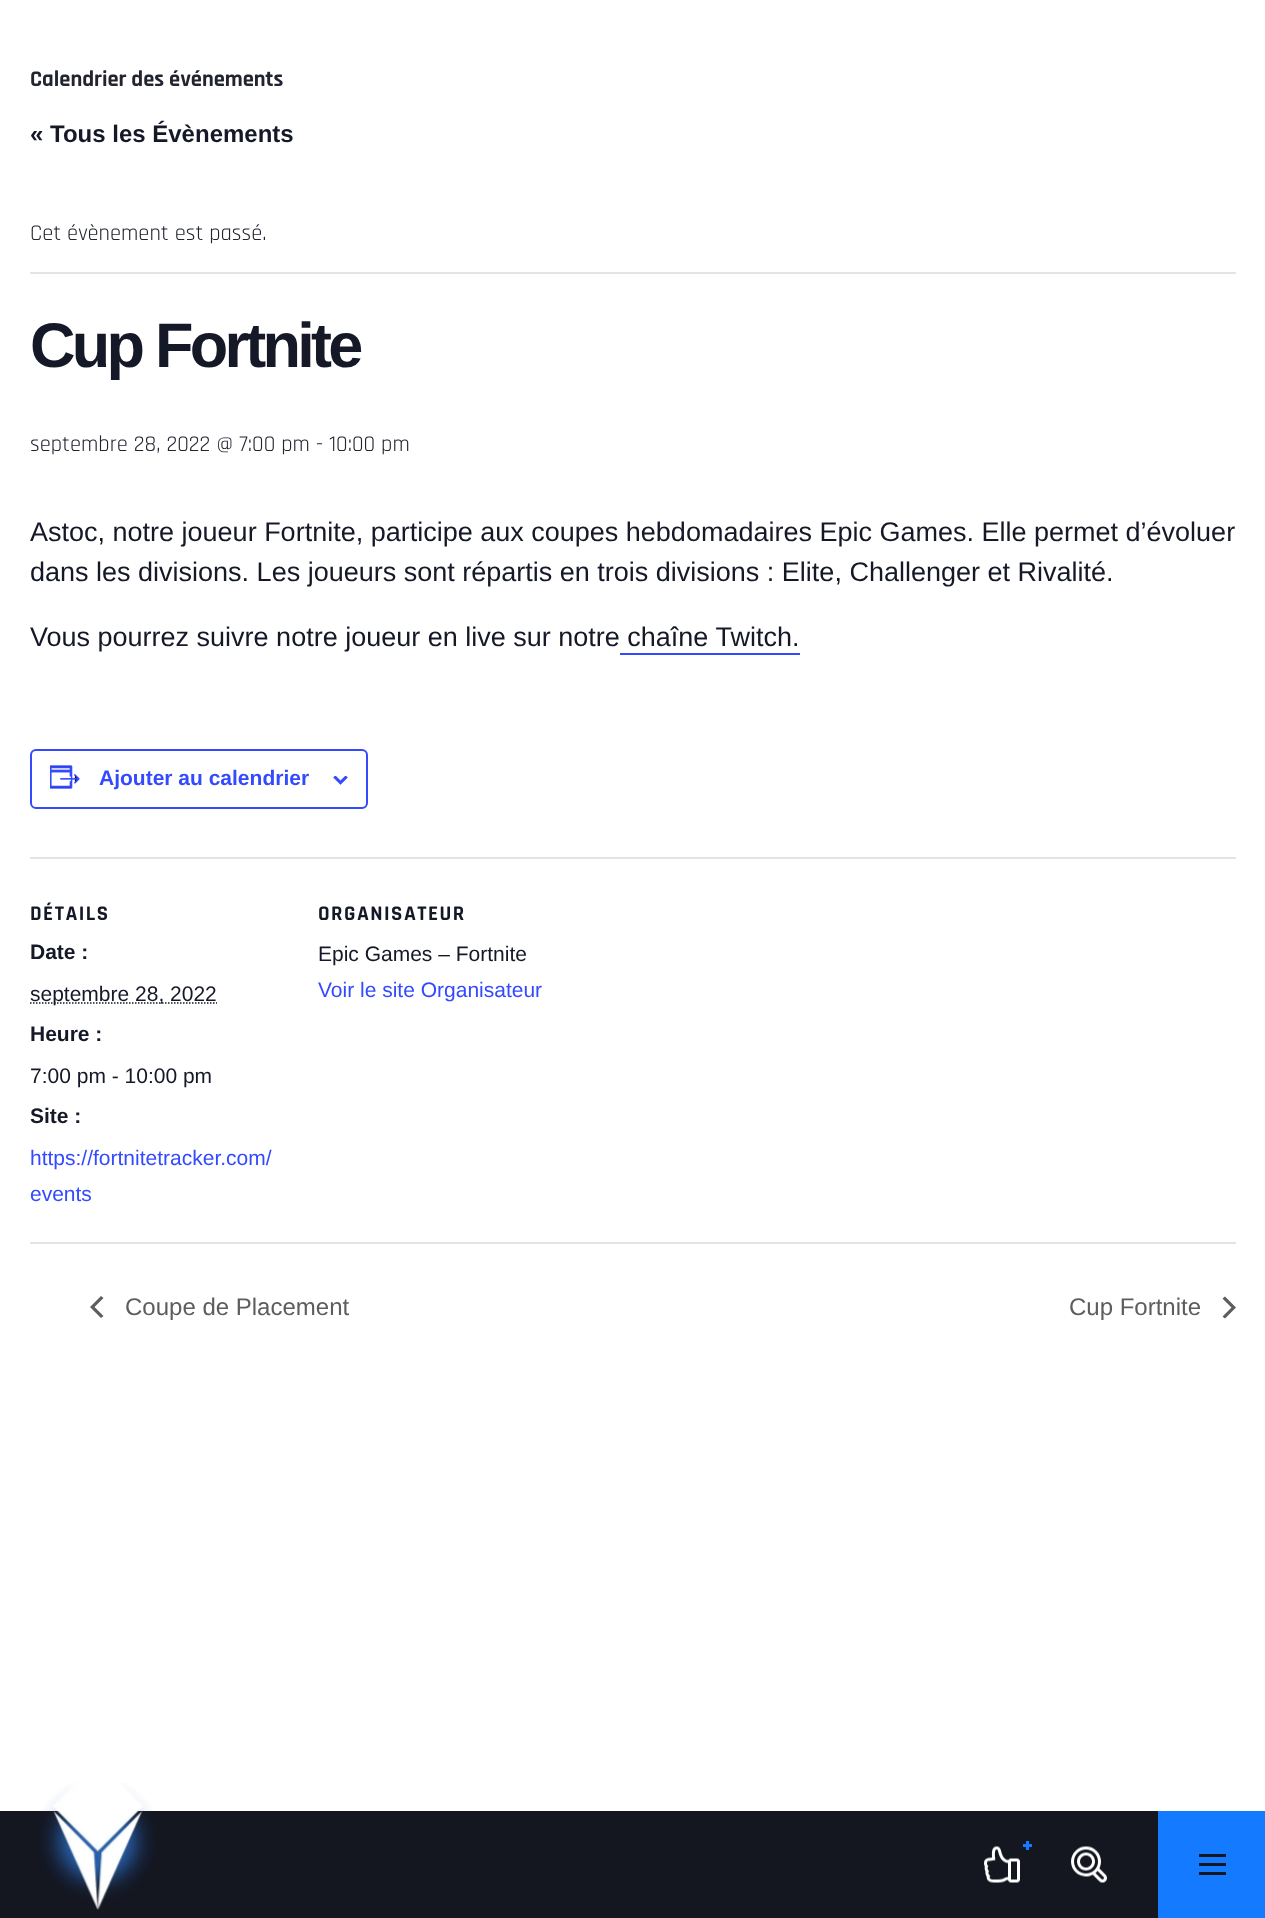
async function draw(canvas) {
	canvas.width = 1265;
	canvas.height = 1918;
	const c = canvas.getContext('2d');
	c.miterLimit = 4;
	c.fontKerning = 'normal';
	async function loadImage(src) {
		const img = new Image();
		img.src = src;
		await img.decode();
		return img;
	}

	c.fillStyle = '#fff';
	c.fillRect(0, 0, 1265, 1918);
	c.font = 'bold 22.5px Rajdhani';
	c.fillStyle = '#222430';
	c.fillText('Calendrier des événements', 30, 86);
	c.font = 'bold 24px Liberation Sans';
	c.fillStyle = '#141827';
	c.fillText('« Tous les Évènements', 30, 142);
	c.fillStyle = '#e4e4e4';
	c.fillRect(30, 272, 1206, 2);
	c.font = '22.5px Rajdhani';
	c.fillStyle = '#222430';
	c.fillText('Cet évènement est passé.', 30, 240);
	c.letterSpacing = '-3.75px';
	c.font = 'bold 63px Liberation Sans';
	c.fillStyle = '#141827';
	c.fillText('Cup Fortnite', 30, 367);
	c.letterSpacing = '0px';
	c.font = '22.5px Rajdhani';
	c.fillStyle = '#222430';
	c.fillText('septembre 28, 2022 @ 7:00 pm - 10:00 pm', 30, 451);
	c.font = '27px Liberation Sans';
	c.fillStyle = '#141827';
	for (const [text, x, y] of [
		['Astoc, notre joueur Fortnite, participe aux coupes hebdomadaires Epic Games. Elle permet d’évoluer', 30, 541],
		['dans les divisions. Les joueurs sont répartis en trois divisions : Elite, Challenger et Rivalité.', 30, 581],
		['Vous pourrez suivre notre joueur en live sur notre chaîne Twitch.', 30, 646],
	]) {
		c.fillText(text, x, y);
	}
	c.fillStyle = '#334aff';
	c.fillRect(620, 653, 180, 2);
	c.beginPath();
	c.roundRect(31, 750, 336, 58, 5);
	c.strokeStyle = '#334aff';
	c.lineWidth = 2;
	c.stroke();
	c.drawImage(await loadImage('img1.png'), 50, 765, 30, 24);
	c.font = 'bold 21px Liberation Sans';
	c.fillText('Ajouter au calendrier', 99, 785);
	c.drawImage(await loadImage('img2.png'), 333, 776, 15, 9);
	c.fillStyle = '#e4e4e4';
	c.fillRect(30, 857, 1206, 2);
	c.letterSpacing = '1.5px';
	c.font = 'bold 21px Rajdhani';
	c.fillStyle = '#141827';
	c.fillText('DÉTAILS', 30, 920);
	c.letterSpacing = '0px';
	c.font = 'bold 21px Liberation Sans';
	c.fillText('Date :', 30, 959);
	c.beginPath();
	c.moveTo(30, 1003);
	c.lineTo(217, 1003);
	c.strokeStyle = '#141827';
	c.lineWidth = 1.5;
	c.setLineDash([1.5, 1.5]);
	c.stroke();
	c.font = '21px Liberation Sans';
	c.fillText('septembre 28, 2022', 30, 1001);
	c.font = 'bold 21px Liberation Sans';
	c.fillText('Heure :', 30, 1041);
	c.font = '21px Liberation Sans';
	c.fillText('7:00 pm - 10:00 pm', 30, 1083);
	c.font = 'bold 21px Liberation Sans';
	c.fillText('Site :', 30, 1123);
	c.font = '21px Liberation Sans';
	c.fillStyle = '#334aff';
	c.fillText('https://fortnitetracker.com/', 30, 1165);
	c.fillText('events', 30, 1201);
	c.letterSpacing = '1.5px';
	c.font = 'bold 21px Rajdhani';
	c.fillStyle = '#141827';
	c.fillText('ORGANISATEUR', 318, 920);
	c.letterSpacing = '0px';
	c.font = '21px Liberation Sans';
	c.fillText('Epic Games – Fortnite', 318, 961);
	c.fillStyle = '#334aff';
	c.fillText('Voir le site Organisateur', 318, 997);
	c.fillStyle = '#e4e4e4';
	c.fillRect(30, 1242, 1206, 2);
	c.fillStyle = '#5d5d5d';
	c.beginPath();
	c.moveTo(103.5, 1316);
	c.lineTo(101, 1318);
	c.lineTo(90, 1307);
	c.lineTo(101, 1296);
	c.lineTo(103.5, 1298);
	c.lineTo(94.5, 1307);
	c.closePath();
	c.fill();
	c.font = '24px Liberation Sans';
	c.fillText('Coupe de Placement', 125, 1315);
	c.fillText('Cup Fortnite', 1069, 1315);
	c.beginPath();
	c.moveTo(1222.5, 1298.5);
	c.lineTo(1225, 1296.5);
	c.lineTo(1236, 1307.5);
	c.lineTo(1225, 1318.5);
	c.lineTo(1222.5, 1316.5);
	c.lineTo(1231.5, 1307.5);
	c.closePath();
	c.fill();
	c.fillStyle = '#151720';
	c.fillRect(0, 1811, 1158, 107);
	c.drawImage(await loadImage('img3.png'), 40, 1783, 116, 127);
	c.drawImage(await loadImage('img4.png'), 984, 1846, 36, 37);
	c.fillStyle = '#147aff';
	c.fillRect(1023, 1844, 9, 3);
	c.fillRect(1026, 1841, 3, 9);
	c.drawImage(await loadImage('img5.png'), 1071, 1846, 36, 37);
	for (const [x, y, w, h, color] of [
		[1158, 1811, 107, 107, '#147aff'],
		[1199, 1854, 27, 3, '#151720'],
		[1199, 1863, 27, 3, '#151720'],
		[1199, 1872, 27, 3, '#151720'],
	]) {
		c.fillStyle = color;
		c.fillRect(x, y, w, h);
	}
}

draw(document.querySelector('canvas'));
